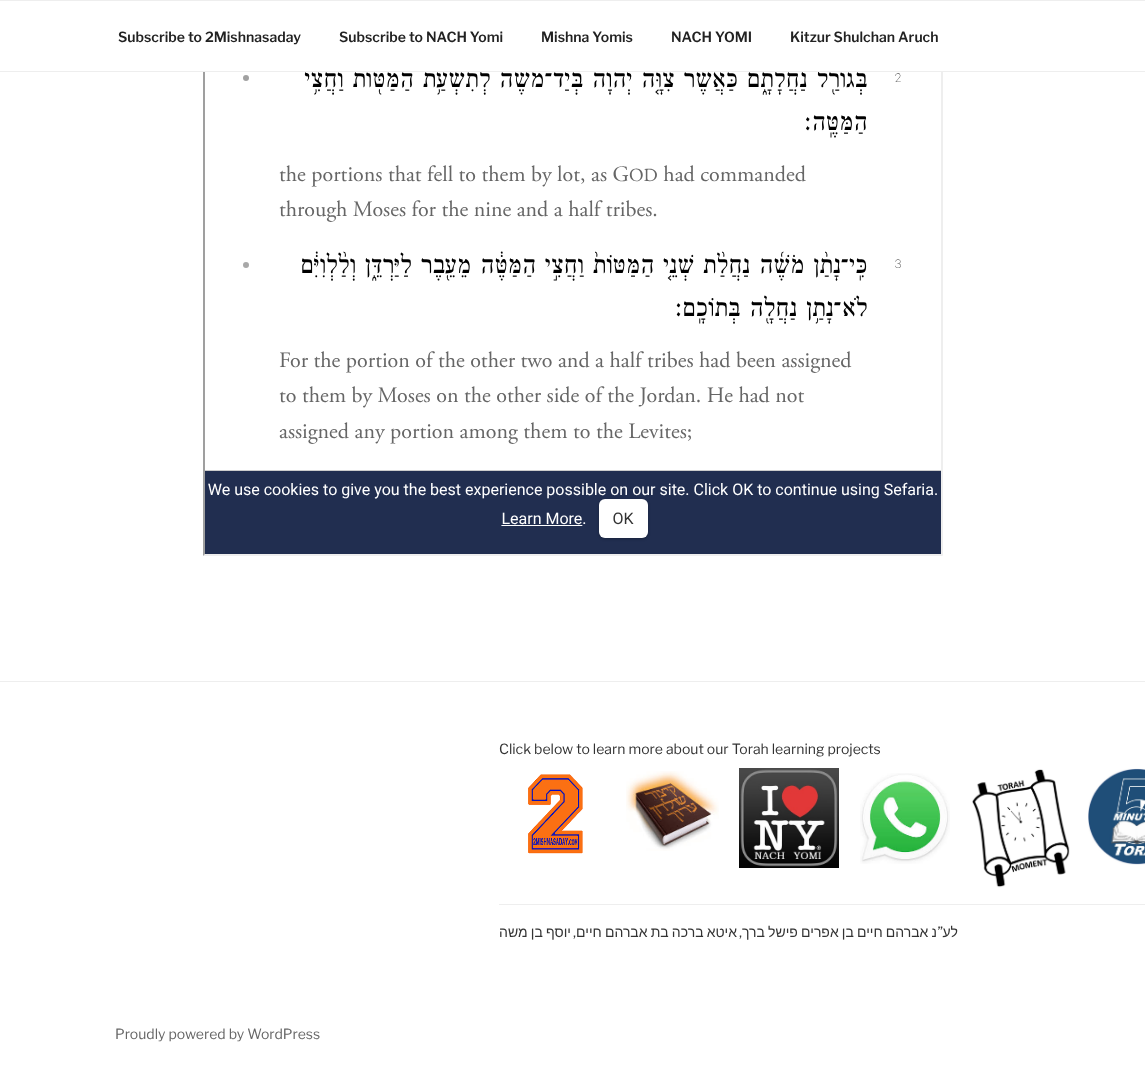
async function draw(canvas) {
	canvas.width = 1145;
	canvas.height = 1080;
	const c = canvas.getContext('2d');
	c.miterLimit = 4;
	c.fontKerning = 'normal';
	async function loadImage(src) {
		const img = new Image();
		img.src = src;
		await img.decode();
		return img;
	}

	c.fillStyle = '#fff';
	c.fillRect(0, 0, 1145, 1080);
	c.fillStyle = '#eee';
	c.beginPath();
	c.moveTo(943, -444);
	c.lineTo(943, 556);
	c.lineTo(941, 554);
	c.lineTo(941, -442);
	c.closePath();
	c.fill();
	c.beginPath();
	c.moveTo(943, 556);
	c.lineTo(203, 556);
	c.lineTo(205, 554);
	c.lineTo(941, 554);
	c.closePath();
	c.fill();
	c.fillStyle = '#9f9f9f';
	c.beginPath();
	c.moveTo(203, 556);
	c.lineTo(203, -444);
	c.lineTo(205, -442);
	c.lineTo(205, 554);
	c.closePath();
	c.fill();
	for (const [x, y, w, h, color] of [
		[203, 1, 740, 70, '#fff'],
		[0, 0, 1145, 1, '#eee'],
		[0, 71, 1145, 1, '#eee'],
	]) {
		c.fillStyle = color;
		c.fillRect(x, y, w, h);
	}
	c.font = '600 14px Libre Franklin';
	c.fillStyle = '#222';
	for (const [text, x, y] of [
		['Subscribe to 2Mishnasaday', 118, 42],
		['Subscribe to NACH Yomi', 339, 42],
		['Mishna Yomis', 541, 42],
		['NACH YOMI', 671, 42],
		['Kitzur Shulchan Aruch', 790, 42],
	]) {
		c.fillText(text, x, y);
	}
	c.drawImage(await loadImage('img1.png'), 205, 72, 736, 482);
	c.fillStyle = '#eee';
	c.fillRect(0, 681, 1145, 1);
	c.font = '14px Libre Franklin';
	c.fillStyle = '#333';
	c.fillText('Click below to learn more about our Torah learning projects', 499, 754);
	c.fillStyle = '#eee';
	c.fillRect(499, 904, 646, 1);
	c.drawImage(await loadImage('img2.png'), 528, 774, 55, 80);
	c.drawImage(await loadImage('img3.png'), 626, 771, 93, 80);
	c.drawImage(await loadImage('img4.png'), 739, 768, 100, 100);
	c.drawImage(await loadImage('img5.png'), 860, 773, 90, 91);
	c.drawImage(await loadImage('img6.png'), 972, 769, 98, 119);
	c.drawImage(await loadImage('img7.png'), 1088, 768, 57, 97);
	c.wordSpacing = '-0.75px';
	c.direction = 'rtl';
	c.font = '14px Liberation Sans';
	c.fillStyle = '#333';
	c.fillText('יוסף בן משה', 571, 937);
	c.wordSpacing = '0px';
	c.font = '14px Libre Franklin';
	c.fillText(',', 576, 937);
	c.wordSpacing = '-0.75px';
	c.font = '14px Liberation Sans';
	c.fillText('איטא ברכה בת אברהם חיים', 737, 937);
	c.wordSpacing = '0px';
	c.font = '14px Libre Franklin';
	c.fillText(',', 742, 937);
	c.wordSpacing = '-0.75px';
	c.font = '14px Liberation Sans';
	c.fillText('נ אברהם חיים בן אפרים פישל ברך', 937, 937);
	c.wordSpacing = '0px';
	c.font = '14px Libre Franklin';
	c.fillText('”', 943, 937);
	c.font = '14px Liberation Sans';
	c.fillText('לע', 958, 937);
	c.direction = 'ltr';
	c.font = '14px Libre Franklin';
	c.fillStyle = '#666';
	c.fillText('Proudly powered by WordPress', 115, 1039);
}

draw(document.querySelector('canvas'));
